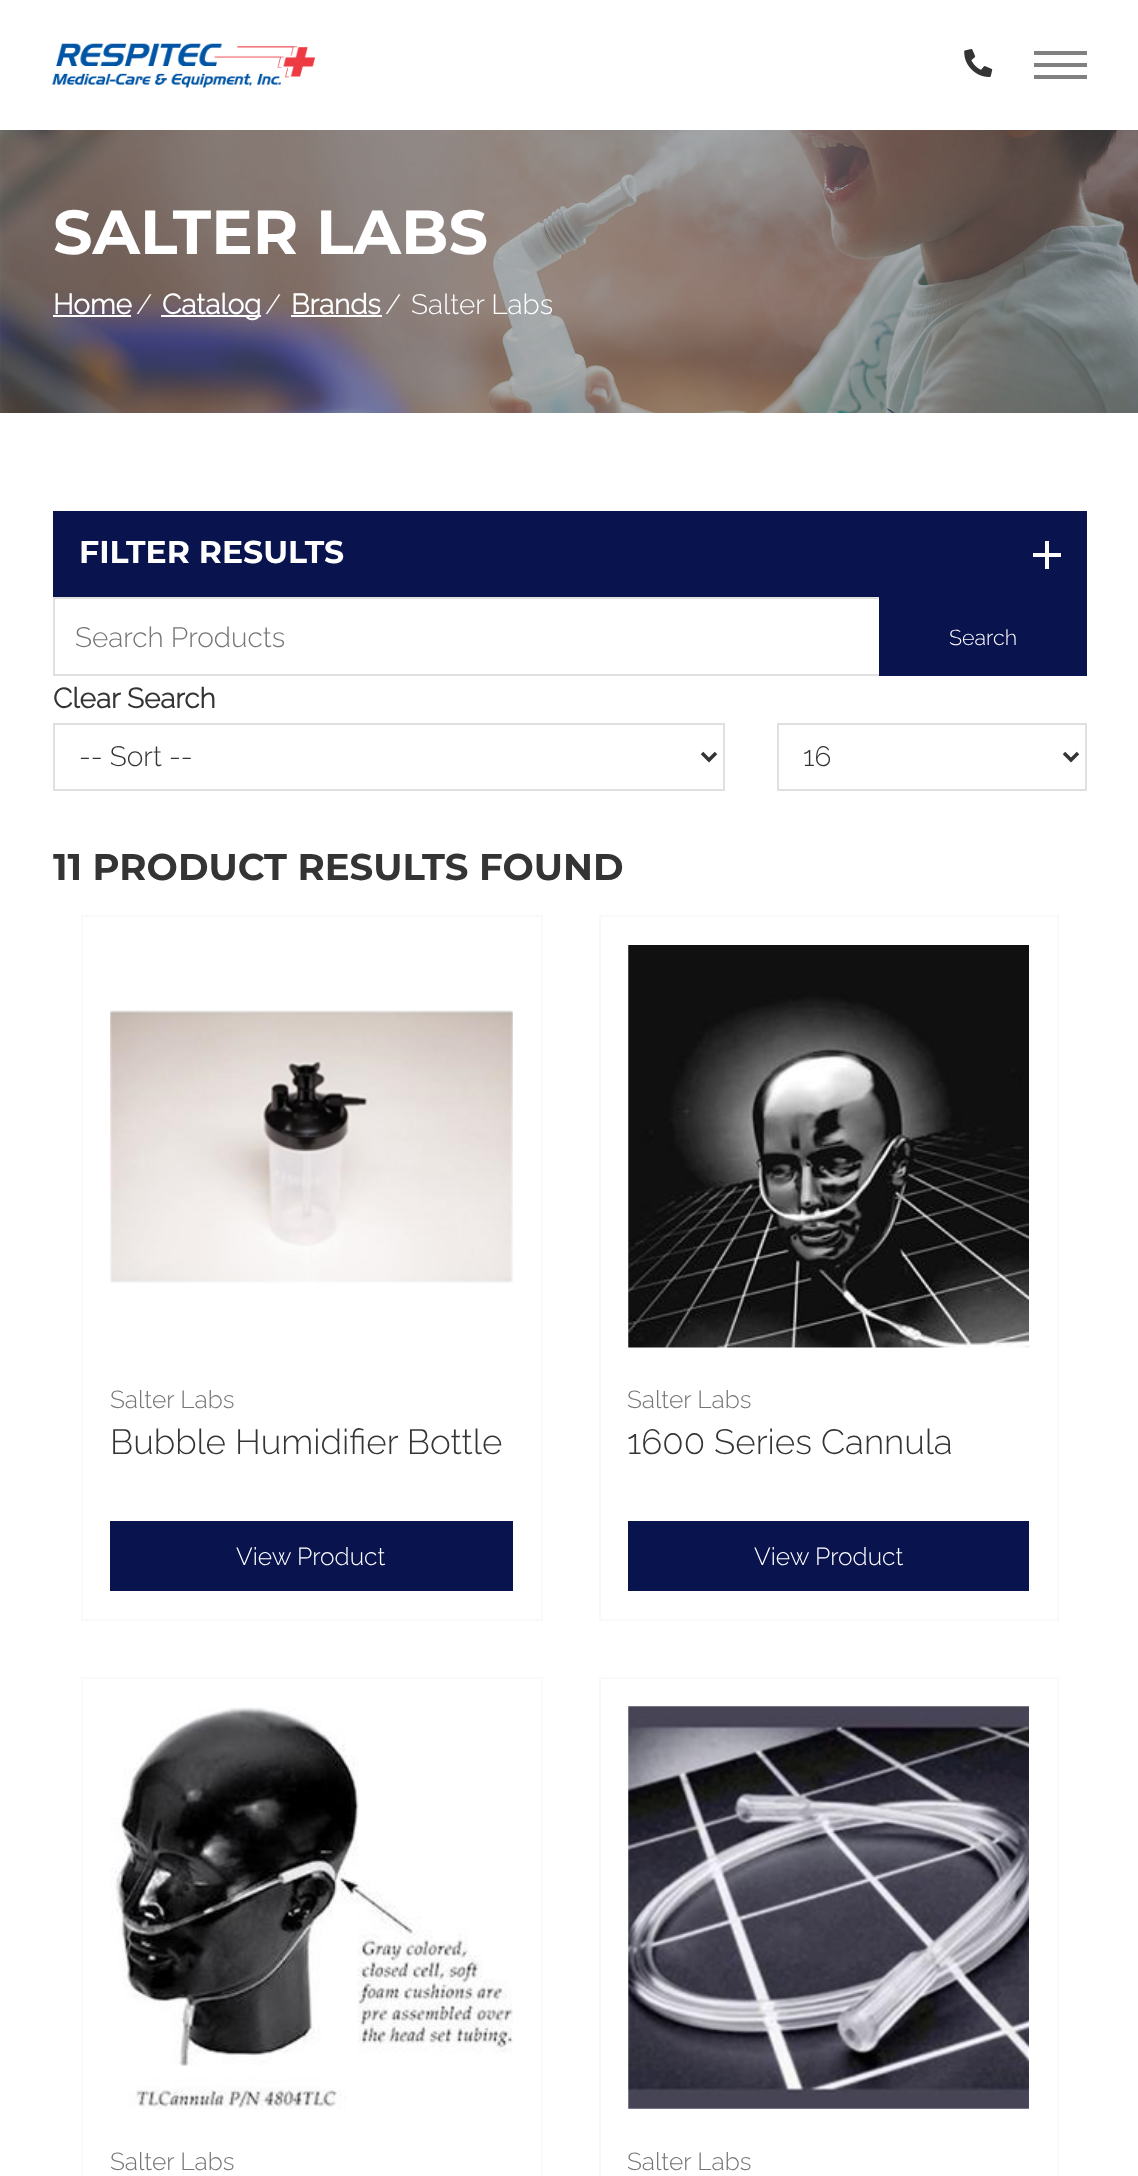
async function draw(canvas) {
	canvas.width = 1138;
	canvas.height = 2176;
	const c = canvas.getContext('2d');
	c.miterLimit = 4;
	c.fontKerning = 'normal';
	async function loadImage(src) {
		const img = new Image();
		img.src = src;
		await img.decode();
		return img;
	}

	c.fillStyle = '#fff';
	c.fillRect(0, 0, 1138, 2176);
	c.drawImage(await loadImage('img1.png'), 52, 43, 263, 45);
	c.drawImage(await loadImage('img2.png'), 964, 49, 29, 28);
	for (const [x, y, w, h, color] of [
		[1034, 63, 53, 4, '#808080'],
		[1034, 51, 53, 4, '#808080'],
		[1034, 75, 53, 4, '#808080'],
	]) {
		c.fillStyle = color;
		c.fillRect(x, y, w, h);
	}
	c.drawImage(await loadImage('img3.png'), 0, 130, 1138, 283);
	c.font = '100 62px Montserrat';
	c.fillStyle = '#fff';
	c.fillText('SALTER LABS', 53, 254);
	c.font = 'bold 28px Raleway';
	c.fillText('Home', 53, 314);
	c.fillRect(53, 315, 78, 2);
	c.font = '100 28px Raleway';
	c.fillText('/', 136, 314);
	c.fillRect(161, 315, 100, 2);
	c.font = 'bold 28px Raleway';
	c.fillText('Catalog', 162, 314);
	c.font = '100 28px Raleway';
	c.fillText('/', 265, 314);
	c.font = 'bold 28px Raleway';
	c.fillText('Brands', 291, 314);
	c.fillRect(291, 315, 91, 2);
	c.font = '100 28px Raleway';
	c.fillText('/', 385, 314);
	c.fillText('Salter Labs', 411, 314);
	c.fillStyle = '#09134e';
	c.fillRect(53, 511, 1034, 86);
	c.font = '100 31.5px Montserrat';
	c.fillStyle = '#fff';
	c.fillText('FILTER RESULTS', 79, 563);
	c.fillRect(1033, 553, 28, 4);
	c.fillRect(1045, 541, 4, 28);
	c.strokeStyle = '#e0e0e0';
	c.lineWidth = 2;
	c.strokeRect(54, 598, 1032, 77);
	c.font = '100 28px Raleway';
	c.fillStyle = '#757575';
	c.fillText('Search Products', 75, 647);
	c.fillStyle = '#09134e';
	c.fillRect(879, 597, 208, 79);
	c.font = '100 21.5px Raleway';
	c.fillStyle = '#fff';
	c.fillText('Search', 949, 645);
	c.font = 'bold 28px Raleway';
	c.fillStyle = '#343434';
	c.fillText('Clear Search', 53, 708);
	c.strokeRect(54, 724, 670, 66);
	c.beginPath();
	c.moveTo(702, 753);
	c.lineTo(709, 760);
	c.lineTo(716, 753);
	c.strokeStyle = '#343434';
	c.lineWidth = 3.5;
	c.stroke();
	c.font = '100 28px Raleway';
	c.fillText('-- Sort --', 79, 766);
	c.strokeStyle = '#e0e0e0';
	c.lineWidth = 2;
	c.strokeRect(778, 724, 308, 66);
	c.beginPath();
	c.moveTo(1064, 753);
	c.lineTo(1071, 760);
	c.lineTo(1078, 753);
	c.strokeStyle = '#343434';
	c.lineWidth = 3.5;
	c.stroke();
	c.fillText('16', 803, 766);
	c.font = '100 37.1px Montserrat';
	c.fillText('11 PRODUCT RESULTS FOUND', 53, 880);
	c.strokeStyle = '#f9f9f9';
	c.lineWidth = 2;
	c.strokeRect(82, 916, 460, 704);
	c.drawImage(await loadImage('img4.png'), 110, 1010, 403, 273);
	c.font = '100 24.5px Raleway';
	c.fillStyle = '#757575';
	c.fillText('Salter Labs', 110, 1408);
	c.font = '100 35px Raleway';
	c.fillStyle = '#343434';
	c.fillText('Bubble Humidifier Bottle', 110, 1454);
	c.fillStyle = '#09134e';
	c.fillRect(110, 1521, 403, 70);
	c.font = '100 24.5px Raleway';
	c.fillStyle = '#fff';
	c.fillText('View Product', 236, 1565);
	c.strokeRect(600, 916, 458, 704);
	c.drawImage(await loadImage('img5.png'), 628, 945, 401, 403);
	c.fillStyle = '#757575';
	c.fillText('Salter Labs', 627, 1408);
	c.font = '100 35px Raleway';
	c.fillStyle = '#343434';
	c.fillText('1600 Series Cannula', 627, 1454);
	c.fillStyle = '#09134e';
	c.fillRect(628, 1521, 401, 70);
	c.font = '100 24.5px Raleway';
	c.fillStyle = '#fff';
	c.fillText('View Product', 754, 1565);
	c.strokeRect(82, 1678, 460, 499);
	c.drawImage(await loadImage('img6.png'), 110, 1707, 403, 402);
	c.fillStyle = '#757575';
	c.fillText('Salter Labs', 110, 2170);
	c.strokeRect(600, 1678, 458, 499);
	c.drawImage(await loadImage('img7.png'), 628, 1706, 401, 403);
	c.fillText('Salter Labs', 627, 2170);
}

draw(document.querySelector('canvas'));
